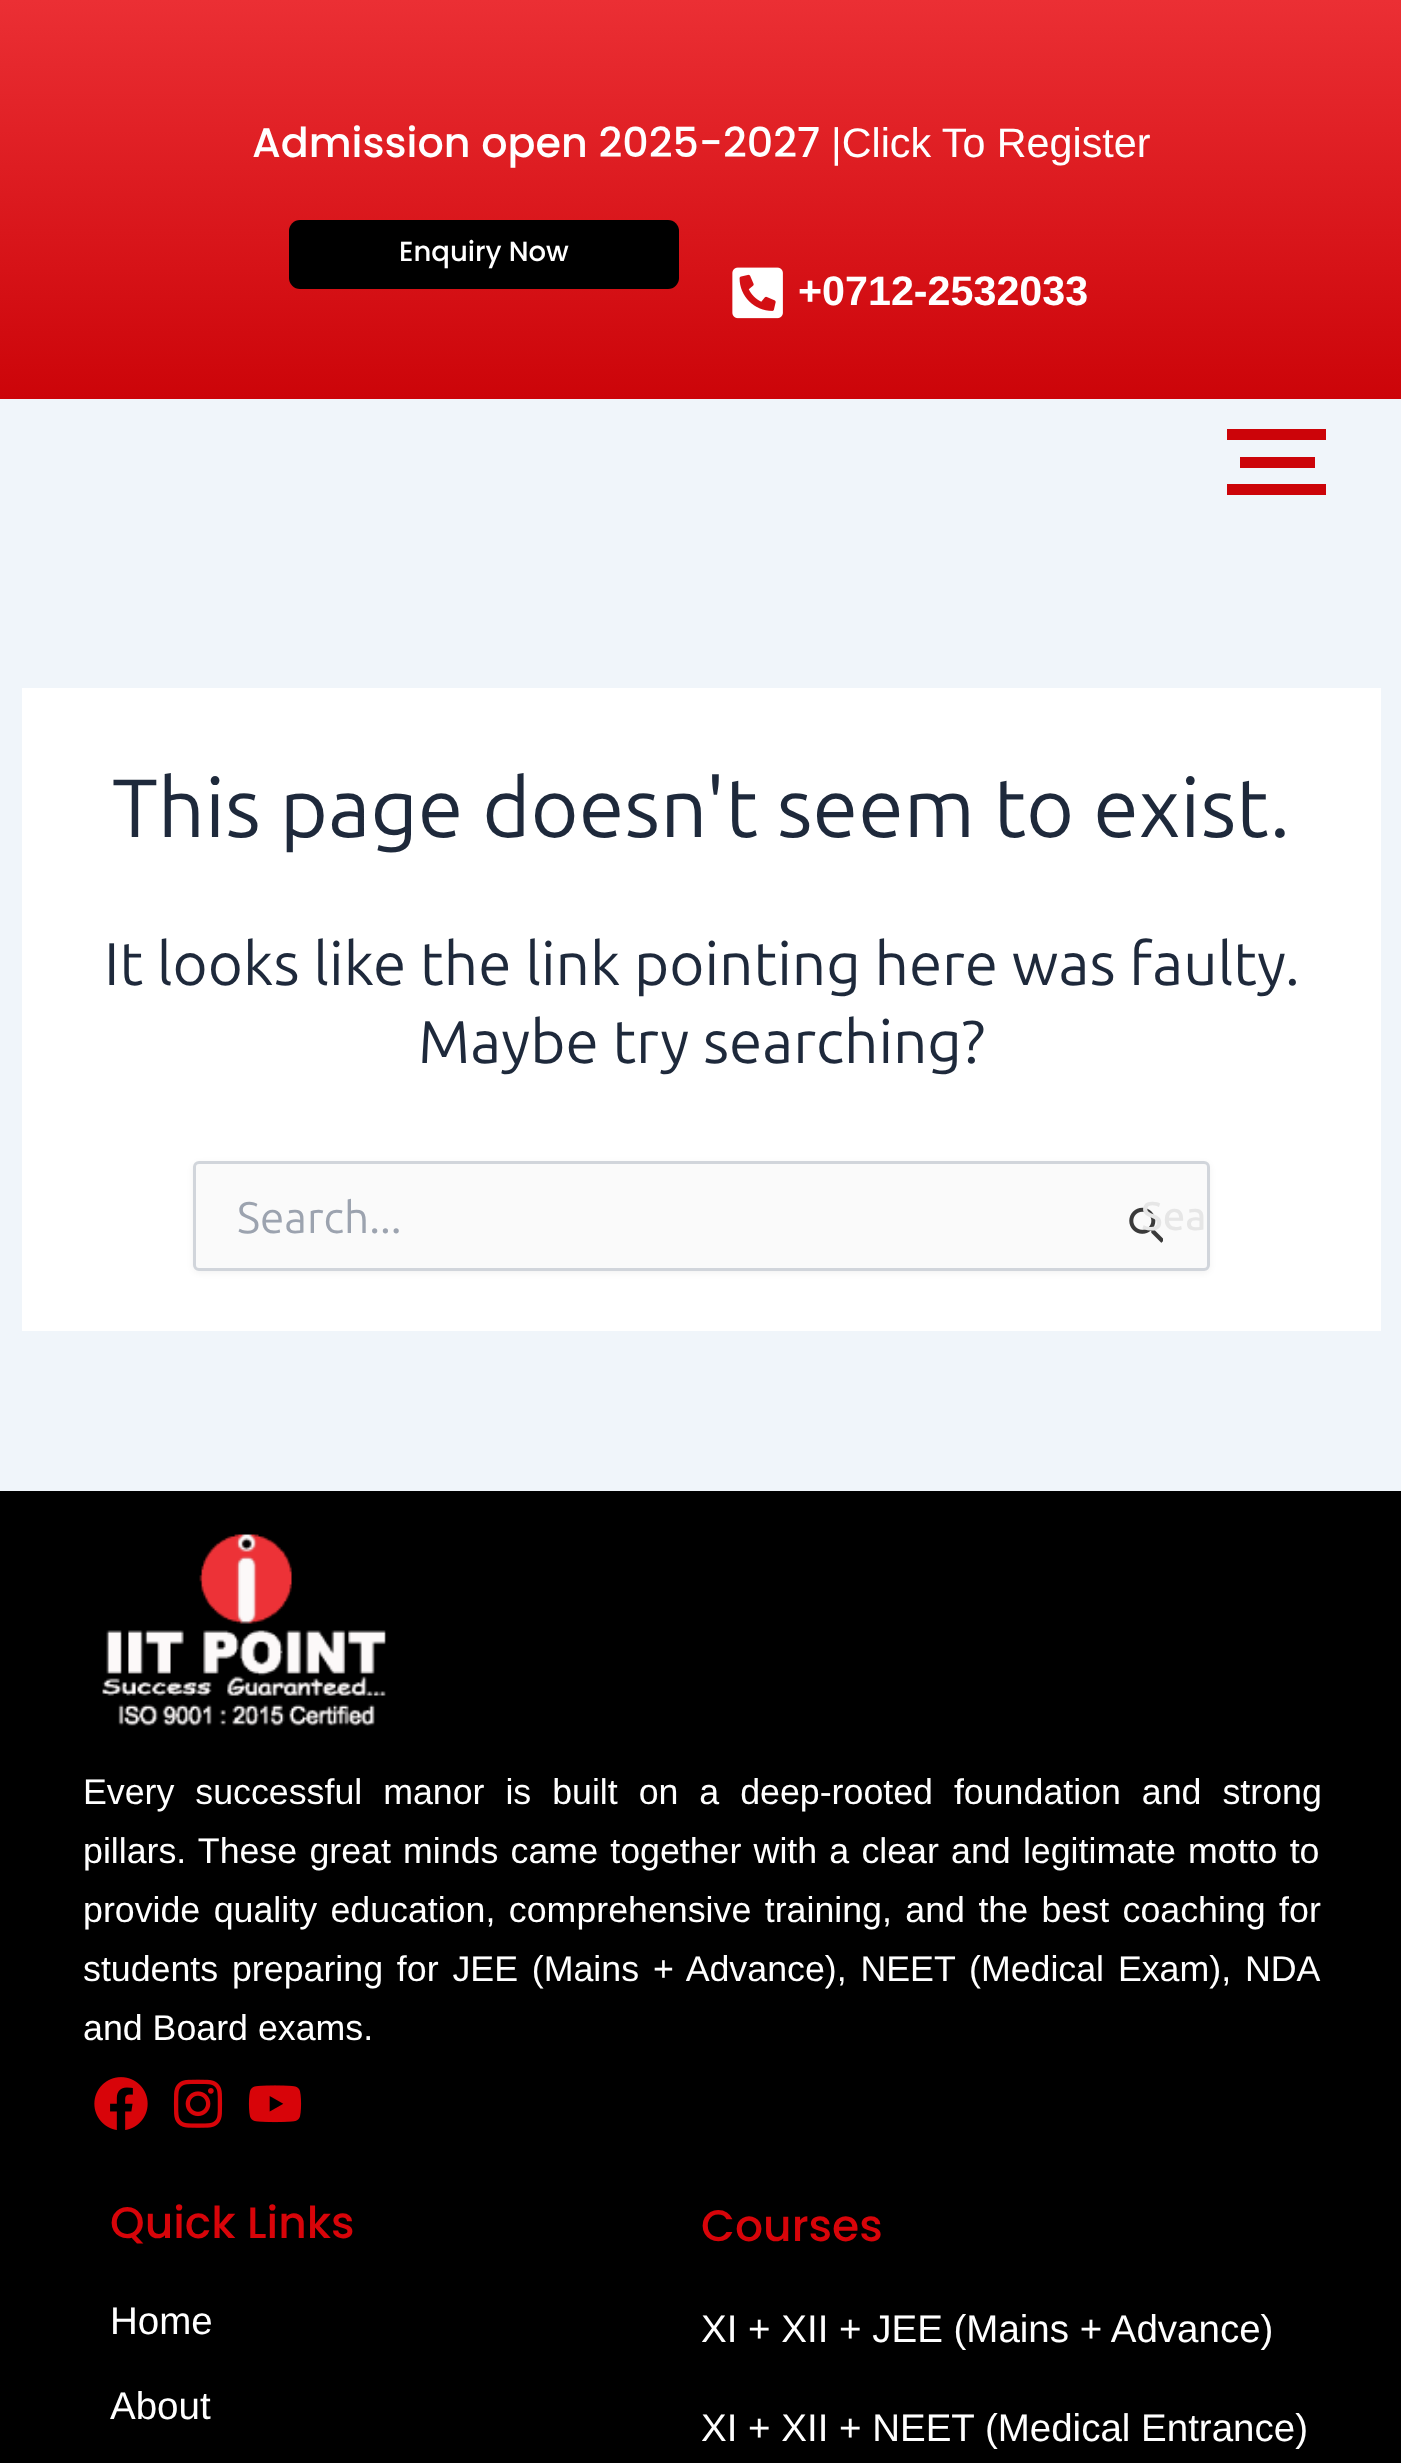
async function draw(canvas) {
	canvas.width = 1401;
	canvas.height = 2463;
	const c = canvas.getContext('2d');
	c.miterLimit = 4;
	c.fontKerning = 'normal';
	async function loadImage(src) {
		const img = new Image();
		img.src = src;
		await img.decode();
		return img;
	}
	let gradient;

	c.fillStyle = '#f0f5fa';
	c.fillRect(0, 0, 1401, 2463);
	gradient = c.createLinearGradient(701, 0, 701, 399);
	gradient.addColorStop(0, '#eb2f34');
	gradient.addColorStop(1, '#cc0409');
	c.fillStyle = gradient;
	c.fillRect(0, 0, 1401, 399);
	c.font = '500 41.25px Poppins';
	c.fillStyle = '#fff';
	c.fillText('Admission open 2025-2027', 252, 157);
	c.font = '41.25px Liberation Sans';
	c.fillText('|Click To Register', 831, 157);
	c.fillStyle = '#000';
	c.beginPath();
	c.roundRect(289, 220, 390, 69, 11);
	c.fill();
	c.font = '500 27.5px Poppins';
	c.fillStyle = '#fff';
	c.fillText('Enquiry Now', 399, 261);
	c.drawImage(await loadImage('img1.png'), 732, 267, 51, 52);
	c.font = 'bold 41.25px Liberation Sans';
	c.fillText('+0712-2532033', 798, 305);
	for (const [x, y, w, h, color] of [
		[1227, 429, 99, 11, '#cc0409'],
		[1240, 457, 75, 11, '#cc0409'],
		[1227, 484, 99, 11, '#cc0409'],
		[22, 688, 1359, 643, '#fff'],
	]) {
		c.fillStyle = color;
		c.fillRect(x, y, w, h);
	}
	c.font = '82.5px Ubuntu';
	c.fillStyle = '#1e293b';
	c.fillText('This page doesn\'t seem to exist.', 112, 837);
	c.font = '60.2px Ubuntu';
	c.fillText('It looks like the link pointing here was faulty.', 104, 985);
	c.fillText('Maybe try searching?', 418, 1063);
	c.fillStyle = '#0000000d';
	c.filter = 'blur(3px)';
	c.beginPath();
	c.roundRect(193, 1163, 1017, 110, 6);
	c.fill();
	c.filter = 'none';
	c.fillStyle = '#fafafa';
	c.beginPath();
	c.roundRect(194.5, 1162.5, 1014, 107, 4.5);
	c.fill();
	c.strokeStyle = '#d1d5db';
	c.lineWidth = 3;
	c.stroke();
	c.font = '44px Ubuntu';
	c.fillStyle = '#9ca3af';
	c.fillText('Search...', 237, 1233);
	c.drawImage(await loadImage('img2.png'), 1129, 1207, 34, 36);
	c.font = '500 40px Ubuntu';
	c.fillStyle = '#e6e6e6';
	c.fillText('Sea', 1141, 1230);
	c.fillStyle = '#000';
	c.fillRect(0, 1491, 1401, 972);
	c.drawImage(await loadImage('img3.png'), 102, 1534, 284, 192);
	c.wordSpacing = '11px';
	c.font = '35.75px Liberation Sans';
	c.fillStyle = '#fff';
	c.fillText('Every successful manor is built on a deep-rooted foundation and strong', 83, 1804);
	c.wordSpacing = '2.25px';
	c.fillText('pillars. These great minds came together with a clear and legitimate motto to', 83, 1863);
	c.wordSpacing = '3.5px';
	c.fillText('provide quality education, comprehensive training, and the best coaching for', 83, 1922);
	c.wordSpacing = '3.9px';
	c.fillText('students preparing for JEE (Mains + Advance), NEET (Medical Exam), NDA', 83, 1981);
	c.wordSpacing = '0px';
	c.fillText('and Board exams.', 83, 2040);
	c.drawImage(await loadImage('img4.png'), 94, 2077, 54, 53);
	c.drawImage(await loadImage('img5.png'), 173, 2079, 50, 49);
	c.drawImage(await loadImage('img6.png'), 248, 2085, 54, 38);
	c.font = '500 44px Poppins';
	c.fillStyle = '#d80409';
	c.fillText('Quick Links', 110, 2238);
	c.font = '38.5px Liberation Sans';
	c.fillStyle = '#fff';
	c.fillText('Home', 110, 2334);
	c.fillText('About', 110, 2419);
	c.font = '500 44px Poppins';
	c.fillStyle = '#d80409';
	c.fillText('Courses', 701, 2241);
	c.font = '38.5px Liberation Sans';
	c.fillStyle = '#fff';
	c.fillText('XI + XII + JEE (Mains + Advance)', 701, 2342);
	c.fillText('XI + XII + NEET (Medical Entrance)', 701, 2441);
}

draw(document.querySelector('canvas'));
